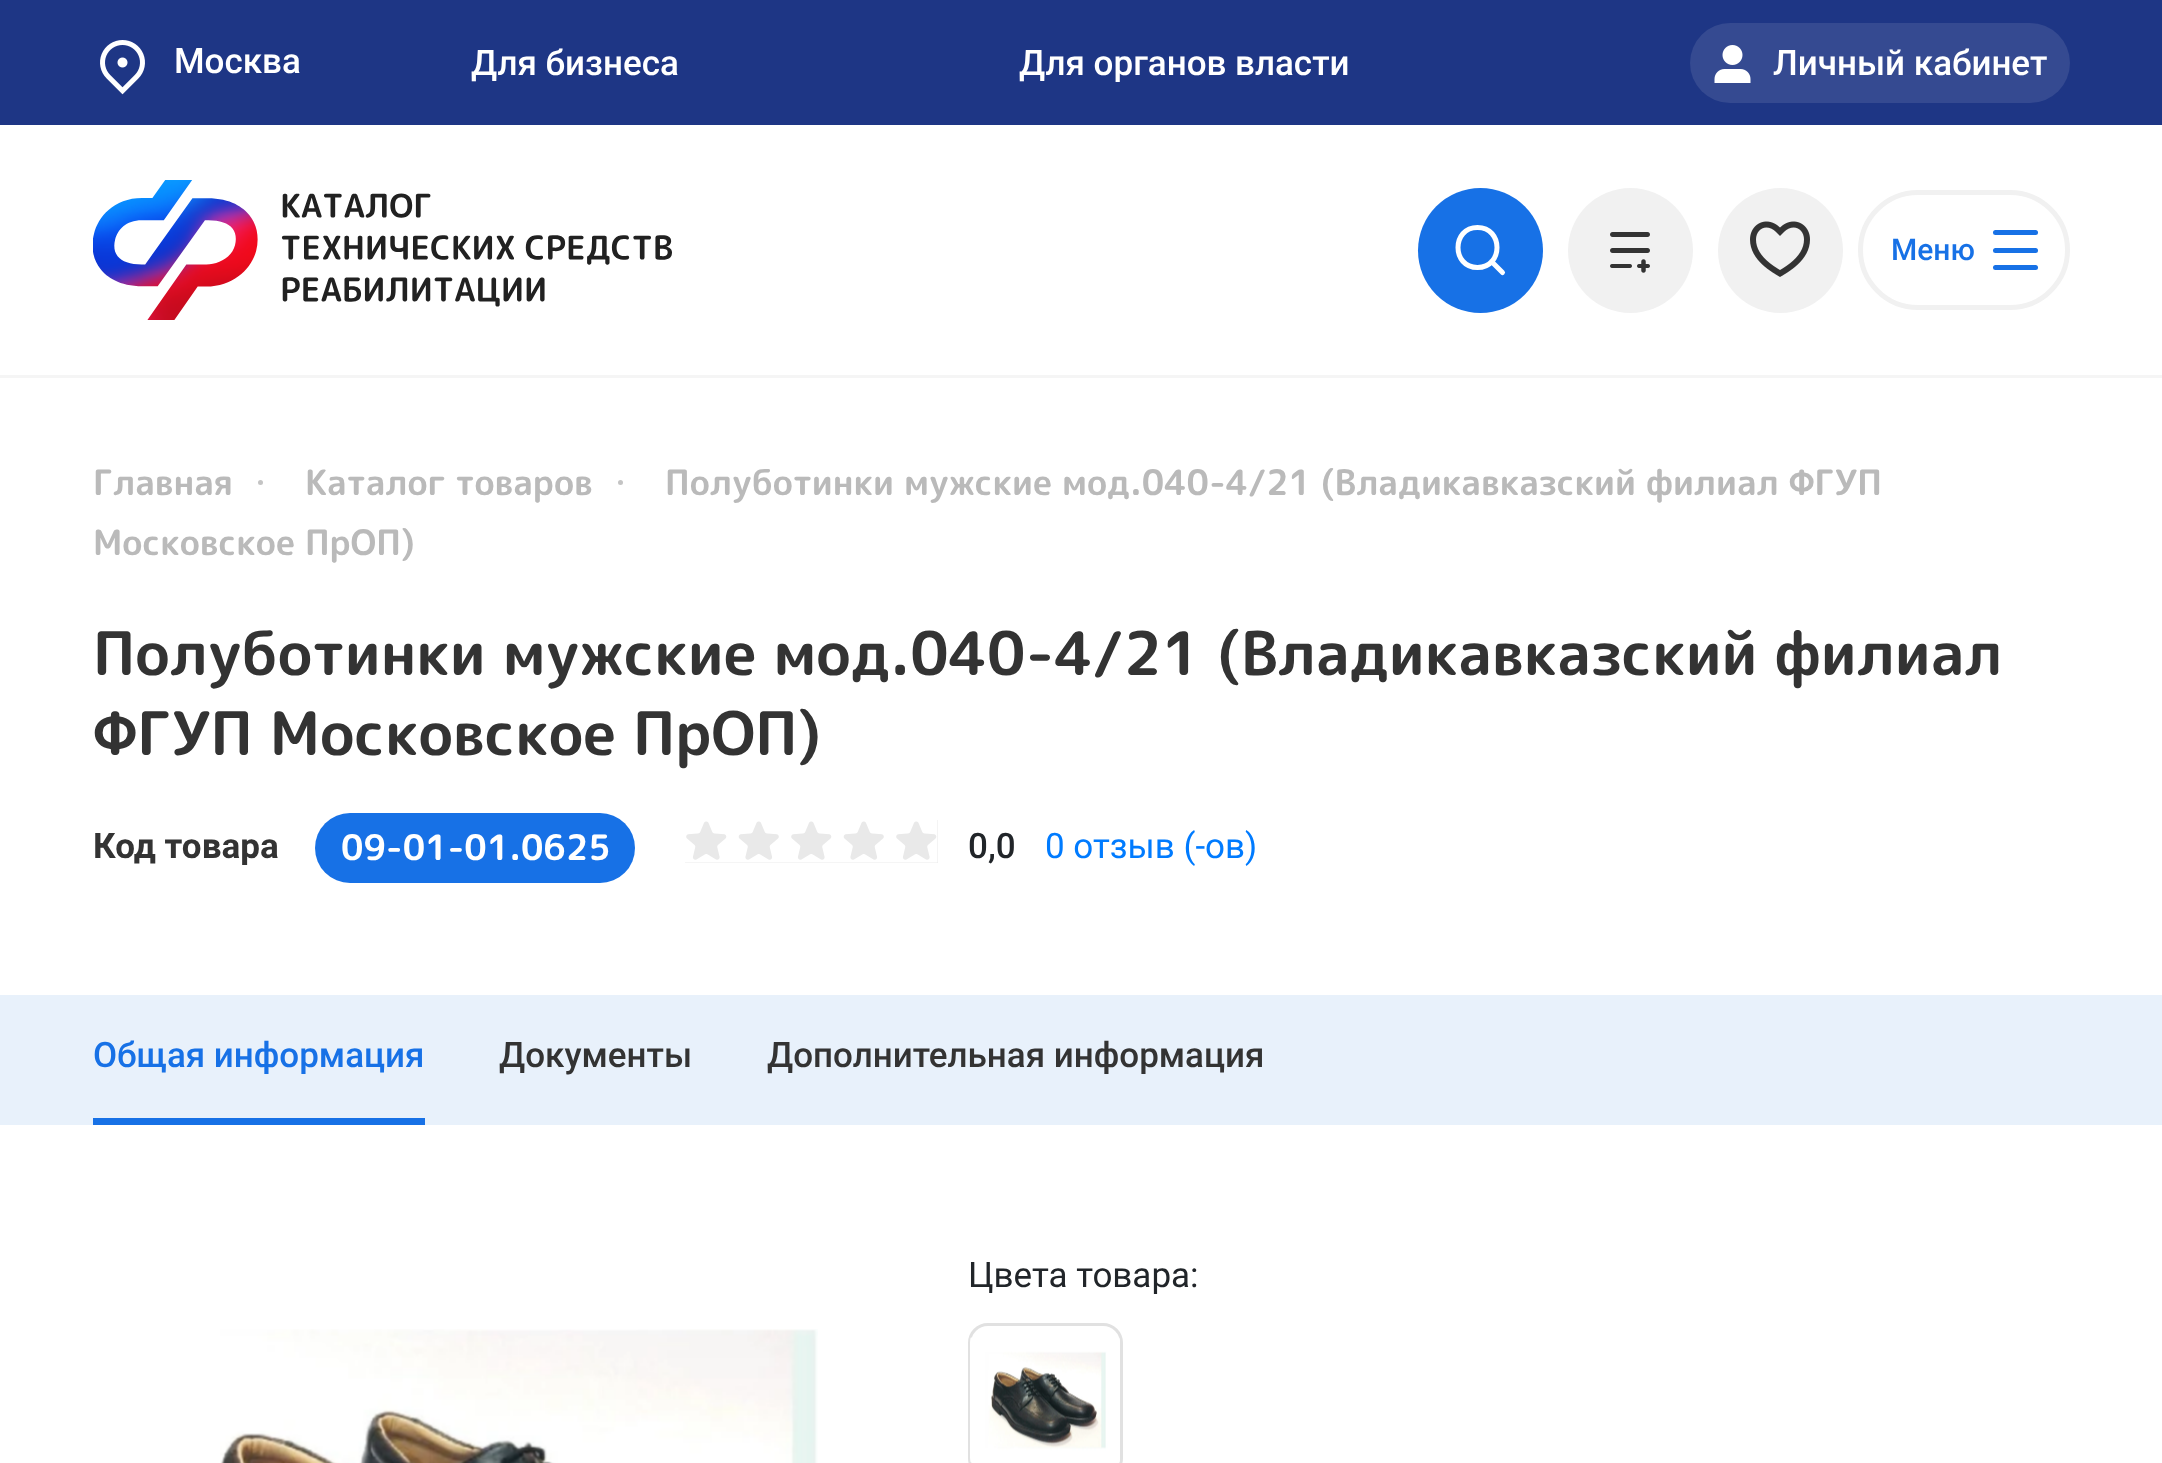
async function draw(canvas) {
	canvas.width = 2162;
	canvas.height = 1463;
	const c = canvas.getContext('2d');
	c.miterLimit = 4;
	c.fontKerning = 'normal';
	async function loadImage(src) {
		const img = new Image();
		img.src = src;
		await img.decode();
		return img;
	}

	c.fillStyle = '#fff';
	c.fillRect(0, 0, 2162, 1463);
	c.fillStyle = '#f5f5f5';
	c.fillRect(0, 375, 2162, 3);
	c.fillStyle = '#1e3685';
	c.fillRect(0, 0, 2162, 125);
	c.drawImage(await loadImage('img1.png'), 100, 40, 45, 55);
	c.font = '500 35px Roboto';
	c.fillStyle = '#fff';
	for (const [text, x, y] of [
		['Москва', 174, 73],
		['Для бизнеса', 471, 75],
		['Для органов власти', 1019, 75],
	]) {
		c.fillText(text, x, y);
	}
	c.fillStyle = '#354a91';
	c.beginPath();
	c.roundRect(1690, 23, 380, 80, 40);
	c.fill();
	c.drawImage(await loadImage('img2.png'), 1714, 45, 37, 38);
	c.fillStyle = '#fff';
	c.fillText('Личный кабинет', 1773, 75);
	c.drawImage(await loadImage('img3.png'), 93, 180, 579, 140);
	c.fillStyle = '#1771e6';
	c.beginPath();
	c.arc(1480.5, 250.5, 62.5, 0, 2 * Math.PI);
	c.fill();
	c.beginPath();
	c.moveTo(1477.5, 267.5);
	c.bezierCurveTo(1503.5, 267.5, 1503.5, 227.5, 1477.5, 227.5);
	c.bezierCurveTo(1451.5, 227.5, 1451.5, 267.5, 1477.5, 267.5);
	c.closePath();
	c.moveTo(1502.5, 272.5);
	c.lineTo(1491.5, 261.5);
	c.strokeStyle = '#fff';
	c.lineWidth = 5;
	c.lineCap = 'round';
	c.lineJoin = 'round';
	c.stroke();
	c.fillStyle = '#f1f1f1';
	c.beginPath();
	c.arc(1630.5, 250.5, 62.5, 0, 2 * Math.PI);
	c.fill();
	c.drawImage(await loadImage('img4.png'), 1610, 232, 40, 41);
	c.beginPath();
	c.arc(1780.5, 250.5, 62.5, 0, 2 * Math.PI);
	c.fill();
	c.drawImage(await loadImage('img5.png'), 1750, 221, 60, 56);
	c.beginPath();
	c.roundRect(1860.5, 192.5, 207, 115, 57.5);
	c.strokeStyle = '#f1f1f1';
	c.lineJoin = 'miter';
	c.stroke();
	c.font = '500 30px Roboto';
	c.fillStyle = '#1771e6';
	c.fillText('Меню', 1891, 260);
	c.beginPath();
	c.roundRect(1993, 230, 45, 5, 2.5);
	c.fill();
	c.beginPath();
	c.roundRect(1993, 248, 45, 5, 2.5);
	c.fill();
	c.beginPath();
	c.roundRect(1993, 265, 45, 5, 2.5);
	c.fill();
	c.font = 'bold 35px "Rounded Mplus 1c"';
	c.fillStyle = '#bababa';
	c.fillText('Главная', 93, 495);
	c.fillStyle = '#c4c4c4';
	c.beginPath();
	c.arc(260.5, 482.5, 2.5, 0, 2 * Math.PI);
	c.fill();
	c.fillStyle = '#bababa';
	c.fillText('Каталог товаров', 305, 495);
	c.fillStyle = '#c4c4c4';
	c.beginPath();
	c.arc(620.5, 482.5, 2.5, 0, 2 * Math.PI);
	c.fill();
	c.fillStyle = '#bababa';
	c.fillText('Полуботинки мужские мод.040-4/21 (Владикавказский филиал ФГУП', 665, 495);
	c.fillText('Московское ПрОП)', 93, 555);
	c.font = 'bold 60px "Rounded Mplus 1c"';
	c.fillStyle = '#333';
	c.fillText('Полуботинки мужские мод.040-4/21 (Владикавказский филиал', 93, 675);
	c.fillText('ФГУП Московское ПрОП)', 93, 755);
	c.font = 'bold 35px Roboto';
	c.fillText('Код товара', 93, 858);
	c.fillStyle = '#1771e6';
	c.beginPath();
	c.roundRect(315, 813, 320, 70, 35);
	c.fill();
	c.font = 'bold 35px "Rounded Mplus 1c"';
	c.fillStyle = '#fff';
	c.fillText('09-01-01.0625', 341, 860);
	c.fillStyle = '#e9e9e9';
	c.fillRect(685, 820, 253, 43);
	c.drawImage(await loadImage('img6.png'), 685, 820, 253, 43);
	c.font = '500 35px Roboto';
	c.fillStyle = '#212529';
	c.fillText('0,0', 968, 858);
	c.font = '35px Roboto';
	c.fillStyle = '#007bff';
	c.fillText('0 отзыв (-ов)', 1045, 858);
	c.fillStyle = '#e8f1fb';
	c.fillRect(0, 995, 2162, 130);
	c.fillStyle = '#1771e6';
	c.fillRect(93, 1118, 332, 7);
	c.font = '500 35px Roboto';
	c.fillText('Общая информация', 93, 1067);
	c.fillStyle = '#333';
	c.fillText('Документы', 499, 1067);
	c.fillText('Дополнительная информация', 767, 1067);
	c.font = '35px Roboto';
	c.fillStyle = '#212529';
	c.fillText('Цвета товара:', 968, 1287);
	c.beginPath();
	c.roundRect(969.5, 1324.5, 152, 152, 18.5);
	c.strokeStyle = '#e1e1e1';
	c.lineWidth = 3;
	c.stroke();
	c.drawImage(await loadImage('img7.png'), 970, 1337, 150, 126);
	c.drawImage(await loadImage('img8.png'), 220, 1329, 598, 134);
}

draw(document.querySelector('canvas'));
